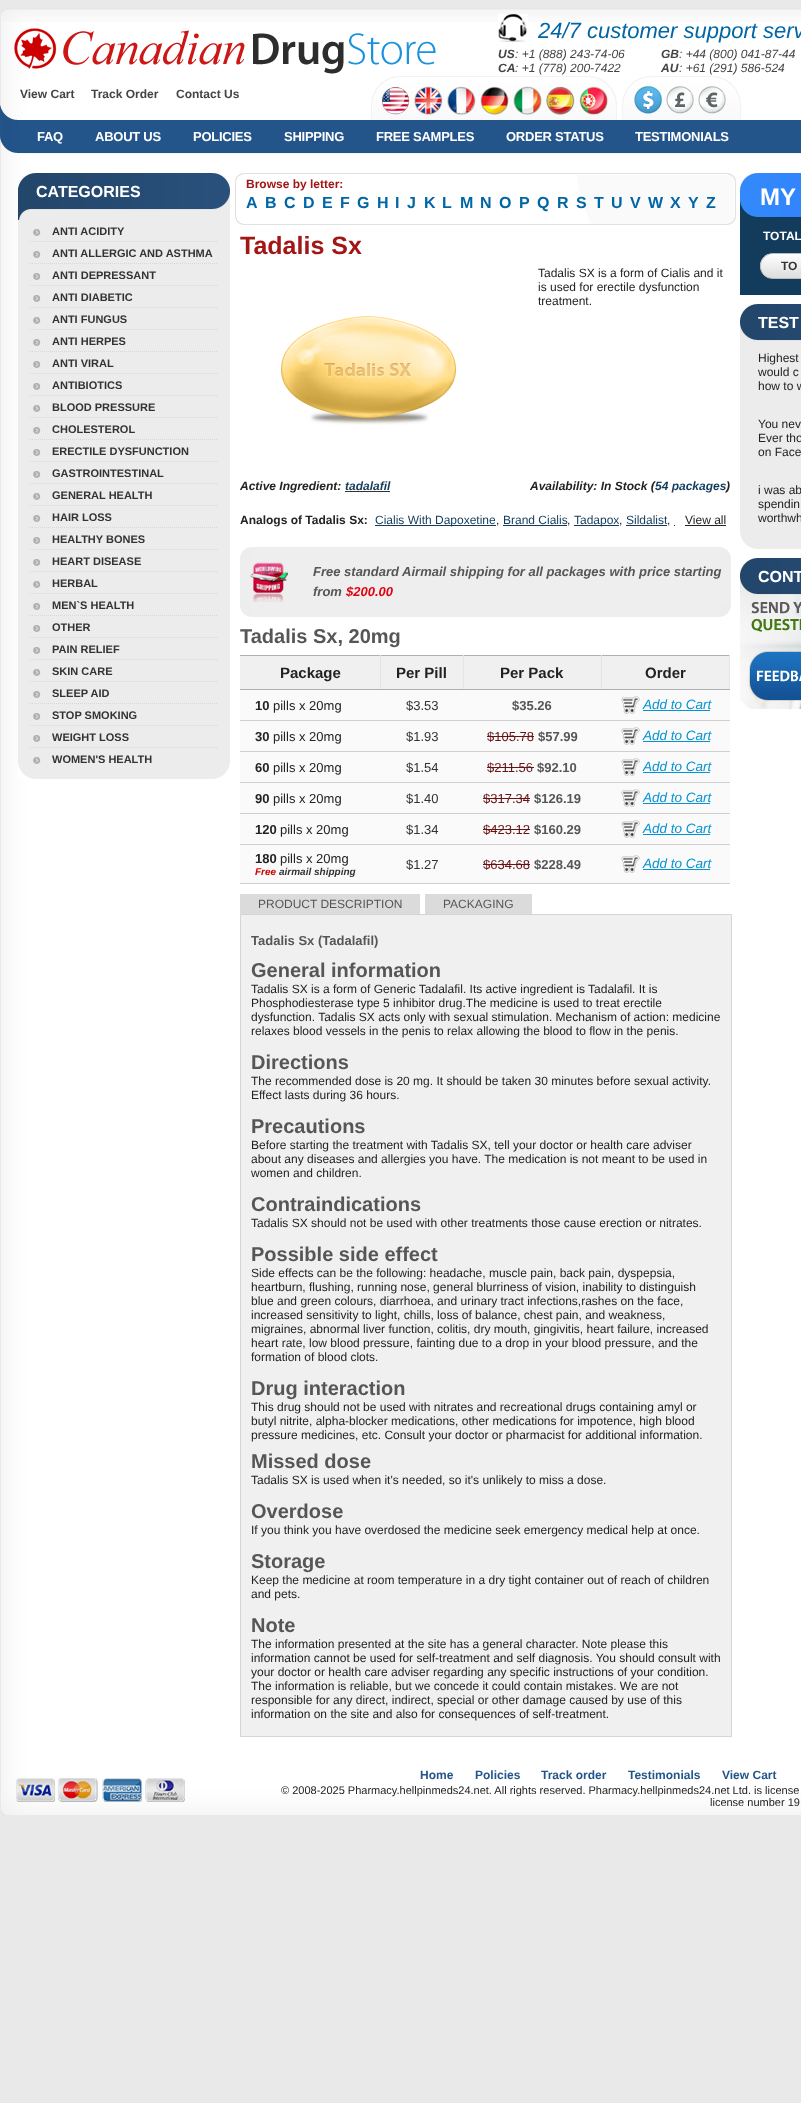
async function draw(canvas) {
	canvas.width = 801;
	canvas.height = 2103;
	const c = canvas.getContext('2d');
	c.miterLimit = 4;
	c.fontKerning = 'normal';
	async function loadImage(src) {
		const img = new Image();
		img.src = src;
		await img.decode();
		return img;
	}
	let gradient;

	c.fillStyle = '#eae9e9';
	c.fillRect(0, 0, 801, 2103);
	c.drawImage(await loadImage('img1.png'), 1, 22, 800, 151);
	c.drawImage(await loadImage('img2.png'), 1, 8, 800, 14);
	c.drawImage(await loadImage('img3.png'), 14, 28, 422, 46);
	c.drawImage(await loadImage('img4.png'), 498, 14, 30, 28);
	c.font = 'italic 22px Liberation Sans';
	c.fillStyle = '#0166a5';
	c.fillText('24/7 customer support serv', 538, 38);
	c.font = 'italic bold 12px Liberation Sans';
	c.fillStyle = '#444';
	c.fillText('US', 498, 58);
	c.font = 'italic 12px Liberation Sans';
	c.fillText(': +1 (888) 243-74-06', 515, 58);
	c.font = 'italic bold 12px Liberation Sans';
	c.fillText('GB', 661, 58);
	c.font = 'italic 12px Liberation Sans';
	c.fillText(': +44 (800) 041-87-44', 679, 58);
	c.font = 'italic bold 12px Liberation Sans';
	c.fillText('CA', 498, 72);
	c.font = 'italic 12px Liberation Sans';
	c.fillText(': +1 (778) 200-7422', 515, 72);
	c.font = 'italic bold 12px Liberation Sans';
	c.fillText('AU', 661, 72);
	c.font = 'italic 12px Liberation Sans';
	c.fillText(': +61 (291) 586-524', 679, 72);
	c.font = 'bold 12px Liberation Sans';
	for (const [text, x, y] of [
		['View Cart', 20, 98],
		['Track Order', 91, 98],
		['Contact Us', 176, 98],
	]) {
		c.fillText(text, x, y);
	}
	c.drawImage(await loadImage('img5.png'), 371, 76, 219, 44);
	c.drawImage(await loadImage('img6.png'), 414, 86, 29, 29);
	c.drawImage(await loadImage('img7.png'), 447, 86, 29, 29);
	c.drawImage(await loadImage('img8.png'), 480, 86, 29, 29);
	c.drawImage(await loadImage('img9.png'), 513, 86, 29, 29);
	c.drawImage(await loadImage('img10.png'), 546, 86, 29, 29);
	c.drawImage(await loadImage('img11.png'), 590, 76, 27, 44);
	c.drawImage(await loadImage('img12.png'), 381, 87, 29, 28);
	c.drawImage(await loadImage('img13.png'), 579, 86, 29, 29);
	c.drawImage(await loadImage('img14.png'), 622, 76, 92, 44);
	c.drawImage(await loadImage('img15.png'), 634, 86, 28, 28);
	c.drawImage(await loadImage('img16.png'), 666, 86, 28, 28);
	c.drawImage(await loadImage('img11.png'), 714, 76, 27, 44);
	c.drawImage(await loadImage('img17.png'), 698, 86, 28, 28);
	c.fillStyle = '#23558b';
	c.fillRect(18, 120, 783, 33);
	c.fillStyle = '#f6f6f6';
	c.fillRect(17, 153, 784, 1);
	c.drawImage(await loadImage('img18.png'), 0, 105, 18, 48);
	c.letterSpacing = '-0.25px';
	c.font = 'bold 13px Liberation Sans';
	c.fillStyle = '#fff';
	for (const [text, x, y] of [
		['FAQ', 37, 141],
		['ABOUT US', 95, 141],
		['POLICIES', 193, 141],
		['SHIPPING', 284, 141],
		['FREE SAMPLES', 376, 141],
		['ORDER STATUS', 506, 141],
		['TESTIMONIALS', 635, 141],
	]) {
		c.fillText(text, x, y);
	}
	c.drawImage(await loadImage('img19.png'), 1, 173, 800, 1594);
	c.fillStyle = '#ececec';
	c.fillRect(18, 220, 212, 559);
	c.fillStyle = '#fff';
	c.fillRect(18, 173, 1, 16);
	c.drawImage(await loadImage('img20.png'), 18, 173, 212, 47);
	c.letterSpacing = '0px';
	c.font = 'bold 16px Liberation Sans';
	c.fillText('CATEGORIES', 36, 197);
	c.beginPath();
	c.moveTo(30, 241.5);
	c.lineTo(218, 241.5);
	c.strokeStyle = '#d8d8d8';
	c.setLineDash([1, 1]);
	c.stroke();
	c.drawImage(await loadImage('img21.png'), 33, 229, 8, 7);
	c.font = 'bold 11px Liberation Sans';
	c.fillStyle = '#333';
	c.fillText('ANTI ACIDITY', 52, 235);
	c.beginPath();
	c.moveTo(30, 263.5);
	c.lineTo(218, 263.5);
	c.stroke();
	c.drawImage(await loadImage('img21.png'), 33, 251, 8, 7);
	c.fillText('ANTI ALLERGIC AND ASTHMA', 52, 257);
	c.beginPath();
	c.moveTo(30, 285.5);
	c.lineTo(218, 285.5);
	c.stroke();
	c.drawImage(await loadImage('img21.png'), 33, 273, 8, 7);
	c.fillText('ANTI DEPRESSANT', 52, 279);
	c.beginPath();
	c.moveTo(30, 307.5);
	c.lineTo(218, 307.5);
	c.stroke();
	c.drawImage(await loadImage('img21.png'), 33, 295, 8, 7);
	c.fillText('ANTI DIABETIC', 52, 301);
	c.beginPath();
	c.moveTo(30, 329.5);
	c.lineTo(218, 329.5);
	c.stroke();
	c.drawImage(await loadImage('img21.png'), 33, 317, 8, 7);
	c.fillText('ANTI FUNGUS', 52, 323);
	c.beginPath();
	c.moveTo(30, 351.5);
	c.lineTo(218, 351.5);
	c.stroke();
	c.drawImage(await loadImage('img21.png'), 33, 339, 8, 7);
	c.fillText('ANTI HERPES', 52, 345);
	c.beginPath();
	c.moveTo(30, 373.5);
	c.lineTo(218, 373.5);
	c.stroke();
	c.drawImage(await loadImage('img21.png'), 33, 361, 8, 7);
	c.fillText('ANTI VIRAL', 52, 367);
	c.beginPath();
	c.moveTo(30, 395.5);
	c.lineTo(218, 395.5);
	c.stroke();
	c.drawImage(await loadImage('img21.png'), 33, 383, 8, 7);
	c.fillText('ANTIBIOTICS', 52, 389);
	c.beginPath();
	c.moveTo(30, 417.5);
	c.lineTo(218, 417.5);
	c.stroke();
	c.drawImage(await loadImage('img21.png'), 33, 405, 8, 7);
	c.fillText('BLOOD PRESSURE', 52, 411);
	c.beginPath();
	c.moveTo(30, 439.5);
	c.lineTo(218, 439.5);
	c.stroke();
	c.drawImage(await loadImage('img21.png'), 33, 427, 8, 7);
	c.fillText('CHOLESTEROL', 52, 433);
	c.beginPath();
	c.moveTo(30, 461.5);
	c.lineTo(218, 461.5);
	c.stroke();
	c.drawImage(await loadImage('img21.png'), 33, 449, 8, 7);
	c.fillText('ERECTILE DYSFUNCTION', 52, 455);
	c.beginPath();
	c.moveTo(30, 483.5);
	c.lineTo(218, 483.5);
	c.stroke();
	c.drawImage(await loadImage('img21.png'), 33, 471, 8, 7);
	c.fillText('GASTROINTESTINAL', 52, 477);
	c.beginPath();
	c.moveTo(30, 505.5);
	c.lineTo(218, 505.5);
	c.stroke();
	c.drawImage(await loadImage('img21.png'), 33, 493, 8, 7);
	c.fillText('GENERAL HEALTH', 52, 499);
	c.beginPath();
	c.moveTo(30, 527.5);
	c.lineTo(218, 527.5);
	c.stroke();
	c.drawImage(await loadImage('img21.png'), 33, 515, 8, 7);
	c.fillText('HAIR LOSS', 52, 521);
	c.beginPath();
	c.moveTo(30, 549.5);
	c.lineTo(218, 549.5);
	c.stroke();
	c.drawImage(await loadImage('img21.png'), 33, 537, 8, 7);
	c.fillText('HEALTHY BONES', 52, 543);
	c.beginPath();
	c.moveTo(30, 571.5);
	c.lineTo(218, 571.5);
	c.stroke();
	c.drawImage(await loadImage('img21.png'), 33, 559, 8, 7);
	c.fillText('HEART DISEASE', 52, 565);
	c.beginPath();
	c.moveTo(30, 593.5);
	c.lineTo(218, 593.5);
	c.stroke();
	c.drawImage(await loadImage('img21.png'), 33, 581, 8, 7);
	c.fillText('HERBAL', 52, 587);
	c.beginPath();
	c.moveTo(30, 615.5);
	c.lineTo(218, 615.5);
	c.stroke();
	c.drawImage(await loadImage('img21.png'), 33, 603, 8, 7);
	c.fillText('MEN`S HEALTH', 52, 609);
	c.beginPath();
	c.moveTo(30, 637.5);
	c.lineTo(218, 637.5);
	c.stroke();
	c.drawImage(await loadImage('img21.png'), 33, 625, 8, 7);
	c.fillText('OTHER', 52, 631);
	c.beginPath();
	c.moveTo(30, 659.5);
	c.lineTo(218, 659.5);
	c.stroke();
	c.drawImage(await loadImage('img21.png'), 33, 647, 8, 7);
	c.fillText('PAIN RELIEF', 52, 653);
	c.beginPath();
	c.moveTo(30, 681.5);
	c.lineTo(218, 681.5);
	c.stroke();
	c.drawImage(await loadImage('img21.png'), 33, 669, 8, 7);
	c.fillText('SKIN CARE', 52, 675);
	c.beginPath();
	c.moveTo(30, 703.5);
	c.lineTo(218, 703.5);
	c.stroke();
	c.drawImage(await loadImage('img21.png'), 33, 691, 8, 7);
	c.fillText('SLEEP AID', 52, 697);
	c.beginPath();
	c.moveTo(30, 725.5);
	c.lineTo(218, 725.5);
	c.stroke();
	c.drawImage(await loadImage('img21.png'), 33, 713, 8, 7);
	c.fillText('STOP SMOKING', 52, 719);
	c.beginPath();
	c.moveTo(30, 747.5);
	c.lineTo(218, 747.5);
	c.stroke();
	c.drawImage(await loadImage('img21.png'), 33, 735, 8, 7);
	c.fillText('WEIGHT LOSS', 52, 741);
	c.fillStyle = '#fff';
	c.fillRect(18, 762, 17, 17);
	c.drawImage(await loadImage('img22.png'), 18, 762, 17, 17);
	c.drawImage(await loadImage('img21.png'), 33, 757, 8, 7);
	c.fillStyle = '#333';
	c.fillText('WOMEN\'S HEALTH', 52, 763);
	c.fillStyle = '#fff';
	c.fillRect(213, 762, 17, 17);
	c.drawImage(await loadImage('img23.png'), 213, 762, 17, 17);
	c.drawImage(await loadImage('img24.png'), 577, 175, 157, 49);
	c.strokeStyle = '#e1e1e1';
	c.setLineDash([]);
	c.strokeRect(235.5, 173.5, 500, 51);
	c.drawImage(await loadImage('img25.png'), 235, 173, 8, 8);
	c.drawImage(await loadImage('img26.png'), 728, 173, 8, 8);
	c.font = 'bold 12px Liberation Sans';
	c.fillStyle = '#a21616';
	c.fillText('Browse by letter:', 246, 188);
	c.font = 'bold 16px Liberation Sans';
	c.fillStyle = '#0166a5';
	for (const [text, x, y] of [
		['A', 246, 208],
		['B', 265, 208],
		['C', 284, 208],
		['D', 303, 208],
		['E', 322, 208],
		['F', 340, 208],
		['G', 357, 208],
		['H', 377, 208],
		['I', 395, 208],
		['J', 407, 208],
		['K', 424, 208],
		['L', 442, 208],
		['M', 460, 208],
		['N', 480, 208],
		['O', 499, 208],
		['P', 519, 208],
		['Q', 537, 208],
		['R', 557, 208],
		['S', 576, 208],
		['T', 594, 208],
		['U', 611, 208],
		['V', 630, 208],
		['W', 648, 208],
		['X', 670, 208],
		['Y', 688, 208],
		['Z', 706, 208],
	]) {
		c.fillText(text, x, y);
	}
	c.drawImage(await loadImage('img27.png'), 235, 217, 8, 8);
	c.drawImage(await loadImage('img28.png'), 728, 217, 8, 8);
	c.font = 'bold 25px Liberation Sans';
	c.fillStyle = '#a21616';
	c.fillText('Tadalis Sx', 240, 254);
	c.font = '12px Liberation Sans';
	c.fillStyle = '#222';
	for (const [text, x, y] of [
		['Tadalis SX is a form of Cialis and it', 538, 277],
		['is used for erectile dysfunction', 538, 291],
		['treatment.', 538, 305],
	]) {
		c.fillText(text, x, y);
	}
	c.drawImage(await loadImage('img29.png'), 281, 316, 175, 109);
	c.font = 'italic bold 12px Liberation Sans';
	c.fillText('Active Ingredient:', 240, 490);
	c.fillStyle = '#133c5c';
	c.fillText('tadalafil', 345, 490);
	c.fillStyle = '#333';
	c.fillRect(345, 491, 45, 1);
	c.fillStyle = '#222';
	c.fillText('Availability: In Stock (', 530, 490);
	c.fillStyle = '#133c5c';
	c.fillText('54 packages', 655, 490);
	c.fillStyle = '#222';
	c.fillText(')', 726, 490);
	c.font = 'bold 12px Liberation Sans';
	c.fillText('Analogs of Tadalis Sx:', 240, 524);
	c.fillStyle = '#133c5c';
	c.fillRect(375, 525, 121, 1);
	c.font = '12px Liberation Sans';
	c.fillText('Cialis With Dapoxetine', 375, 524);
	c.fillStyle = '#222';
	c.fillText(',', 496, 524);
	c.fillStyle = '#133c5c';
	c.fillText('Brand Cialis', 503, 524);
	c.fillStyle = '#222';
	c.fillText(',', 567, 524);
	c.fillStyle = '#133c5c';
	c.fillRect(503, 525, 64, 1);
	c.fillRect(574, 525, 45, 1);
	c.fillText('Tadapox', 574, 524);
	c.fillStyle = '#222';
	c.fillText(',', 619, 524);
	c.fillStyle = '#133c5c';
	c.fillText('Sildalist', 626, 524);
	c.fillStyle = '#222';
	c.fillText(',', 667, 524);
	c.fillStyle = '#133c5c';
	c.fillRect(626, 525, 41, 1);
	c.fillRect(674, 525, 1, 1);
	c.fillStyle = '#222';
	c.fillText('View all', 685, 524);
	for (const [x, y, w, h, color] of [
		[685, 525, 41, 1, '#222'],
		[240, 547, 491, 70, '#eee'],
		[240, 547, 12, 12, '#fff'],
	]) {
		c.fillStyle = color;
		c.fillRect(x, y, w, h);
	}
	c.drawImage(await loadImage('img30.png'), 240, 547, 12, 12);
	c.fillRect(719, 547, 12, 12);
	c.drawImage(await loadImage('img31.png'), 719, 547, 12, 12);
	c.drawImage(await loadImage('img32.png'), 250, 562, 38, 40);
	c.font = 'italic bold 13px Liberation Sans';
	c.fillStyle = '#575656';
	c.fillText('Free standard Airmail shipping for all packages with price starting', 313, 576);
	c.fillText('from', 313, 596);
	c.fillStyle = '#e10010';
	c.fillText('$200.00', 346, 596);
	c.fillStyle = '#fff';
	c.fillRect(240, 605, 11, 12);
	c.drawImage(await loadImage('img33.png'), 240, 605, 12, 12);
	c.fillRect(720, 605, 11, 12);
	c.drawImage(await loadImage('img34.png'), 719, 605, 12, 12);
	c.font = 'bold 20px Liberation Sans';
	c.fillStyle = '#575656';
	c.fillText('Tadalis Sx, 20mg', 240, 643);
	for (const [x, y, w, h, color] of [
		[240, 690, 490, 193, '#fafafa'],
		[240, 655, 490, 1, '#afafaf'],
		[240, 656, 140, 33, '#f0f0f0'],
		[729, 655, 1, 35, '#e5e5e5'],
		[601, 689, 129, 1, '#afafaf'],
		[601, 655, 1, 35, '#e5e5e5'],
		[463, 689, 139, 1, '#afafaf'],
		[463, 655, 1, 35, '#e5e5e5'],
		[380, 689, 84, 1, '#afafaf'],
		[380, 655, 1, 35, '#e5e5e5'],
		[240, 689, 141, 1, '#afafaf'],
	]) {
		c.fillStyle = color;
		c.fillRect(x, y, w, h);
	}
	c.font = 'bold 15px Liberation Sans';
	c.fillStyle = '#222';
	c.fillText('Package', 280, 678);
	c.fillStyle = '#f0f0f0';
	c.fillRect(381, 656, 82, 33);
	c.fillStyle = '#222';
	c.fillText('Per Pill', 396, 678);
	c.fillStyle = '#f0f0f0';
	c.fillRect(464, 656, 137, 33);
	c.fillStyle = '#222';
	c.fillText('Per Pack', 500, 678);
	c.fillStyle = '#f0f0f0';
	c.fillRect(602, 656, 127, 33);
	c.fillStyle = '#222';
	c.fillText('Order', 645, 678);
	c.font = 'bold 13px Liberation Sans';
	c.fillText('10', 255, 710);
	c.font = '13px Liberation Sans';
	c.fillText('pills x 20mg', 273, 710);
	c.fillStyle = '#333';
	c.fillText('$3.53', 406, 710);
	c.font = 'bold 13px Liberation Sans';
	c.fillStyle = '#575656';
	c.fillText('$35.26', 512, 710);
	c.fillStyle = '#cfcfcf';
	c.fillRect(240, 720, 490, 1);
	c.drawImage(await loadImage('img35.png'), 621, 696, 19, 18);
	c.font = 'italic 13.5px Liberation Sans';
	c.fillStyle = '#0793d3';
	c.fillText('Add to Cart', 643, 709);
	c.fillRect(643, 710, 67, 1);
	c.font = 'bold 13px Liberation Sans';
	c.fillStyle = '#222';
	c.fillText('30', 255, 741);
	c.font = '13px Liberation Sans';
	c.fillText('pills x 20mg', 273, 741);
	c.fillStyle = '#333';
	c.fillText('$1.93', 406, 741);
	c.fillStyle = '#671313';
	c.fillText('$105.78', 487, 741);
	c.fillRect(487, 736, 47, 1);
	c.font = 'bold 13px Liberation Sans';
	c.fillStyle = '#575656';
	c.fillText('$57.99', 538, 741);
	c.fillStyle = '#cfcfcf';
	c.fillRect(240, 751, 490, 1);
	c.drawImage(await loadImage('img35.png'), 621, 727, 19, 18);
	c.font = 'italic 13.5px Liberation Sans';
	c.fillStyle = '#0793d3';
	c.fillText('Add to Cart', 643, 740);
	c.fillRect(643, 741, 67, 1);
	c.font = 'bold 13px Liberation Sans';
	c.fillStyle = '#222';
	c.fillText('60', 255, 772);
	c.font = '13px Liberation Sans';
	c.fillText('pills x 20mg', 273, 772);
	c.fillStyle = '#333';
	c.fillText('$1.54', 406, 772);
	c.fillStyle = '#671313';
	c.fillText('$211.56', 487, 772);
	c.fillRect(487, 767, 47, 1);
	c.font = 'bold 13px Liberation Sans';
	c.fillStyle = '#575656';
	c.fillText('$92.10', 537, 772);
	c.fillStyle = '#cfcfcf';
	c.fillRect(240, 782, 490, 1);
	c.drawImage(await loadImage('img35.png'), 621, 758, 19, 18);
	c.font = 'italic 13.5px Liberation Sans';
	c.fillStyle = '#0793d3';
	c.fillText('Add to Cart', 643, 771);
	c.fillRect(643, 772, 67, 1);
	c.font = 'bold 13px Liberation Sans';
	c.fillStyle = '#222';
	c.fillText('90', 255, 803);
	c.font = '13px Liberation Sans';
	c.fillText('pills x 20mg', 273, 803);
	c.fillStyle = '#333';
	c.fillText('$1.40', 406, 803);
	c.fillStyle = '#671313';
	c.fillText('$317.34', 483, 803);
	c.fillRect(483, 798, 47, 1);
	c.font = 'bold 13px Liberation Sans';
	c.fillStyle = '#575656';
	c.fillText('$126.19', 534, 803);
	c.fillStyle = '#cfcfcf';
	c.fillRect(240, 813, 490, 1);
	c.drawImage(await loadImage('img35.png'), 621, 789, 19, 18);
	c.font = 'italic 13.5px Liberation Sans';
	c.fillStyle = '#0793d3';
	c.fillText('Add to Cart', 643, 802);
	c.fillRect(643, 803, 67, 1);
	c.font = 'bold 13px Liberation Sans';
	c.fillStyle = '#222';
	c.fillText('120', 255, 834);
	c.font = '13px Liberation Sans';
	c.fillText('pills x 20mg', 280, 834);
	c.fillStyle = '#333';
	c.fillText('$1.34', 406, 834);
	c.fillStyle = '#671313';
	c.fillText('$423.12', 483, 834);
	c.fillRect(483, 829, 47, 1);
	c.font = 'bold 13px Liberation Sans';
	c.fillStyle = '#575656';
	c.fillText('$160.29', 534, 834);
	c.fillStyle = '#cfcfcf';
	c.fillRect(240, 844, 490, 1);
	c.drawImage(await loadImage('img35.png'), 621, 820, 19, 18);
	c.font = 'italic 13.5px Liberation Sans';
	c.fillStyle = '#0793d3';
	c.fillText('Add to Cart', 643, 833);
	c.fillRect(643, 834, 67, 1);
	c.font = 'bold 13px Liberation Sans';
	c.fillStyle = '#222';
	c.fillText('180', 255, 863);
	c.font = '13px Liberation Sans';
	c.fillText('pills x 20mg', 280, 863);
	c.font = 'italic bold 10px Liberation Sans';
	c.fillStyle = '#c00';
	c.fillText('Free', 255, 875);
	c.fillStyle = '#333';
	c.fillText('airmail shipping', 279, 875);
	c.font = '13px Liberation Sans';
	c.fillText('$1.27', 406, 869);
	c.fillStyle = '#671313';
	c.fillText('$634.68', 483, 869);
	c.fillRect(483, 864, 47, 1);
	c.font = 'bold 13px Liberation Sans';
	c.fillStyle = '#575656';
	c.fillText('$228.49', 534, 869);
	c.fillStyle = '#cfcfcf';
	c.fillRect(240, 883, 490, 1);
	c.drawImage(await loadImage('img35.png'), 621, 855, 19, 18);
	c.font = 'italic 13.5px Liberation Sans';
	c.fillStyle = '#0793d3';
	c.fillText('Add to Cart', 643, 868);
	c.fillRect(643, 869, 67, 1);
	c.fillStyle = '#dbdbdb';
	c.fillRect(240, 894, 180, 20);
	c.font = '12px Liberation Sans';
	c.fillStyle = '#575656';
	c.fillText('PRODUCT DESCRIPTION', 258, 908);
	c.fillStyle = '#dbdbdb';
	c.fillRect(425, 894, 107, 20);
	c.fillStyle = '#575656';
	c.fillText('PACKAGING', 443, 908);
	c.fillStyle = '#f0f0f0';
	c.beginPath();
	c.rect(240.5, 914.5, 491, 822);
	c.fill();
	c.strokeStyle = '#d5d5d5';
	c.stroke();
	c.font = 'bold 13px Liberation Sans';
	c.fillStyle = '#575656';
	c.fillText('Tadalis Sx (Tadalafil)', 251, 945);
	c.font = 'bold 20px Liberation Sans';
	c.fillText('General information', 251, 977);
	c.font = '12px Liberation Sans';
	c.fillStyle = '#222';
	for (const [text, x, y] of [
		['Tadalis SX is a form of Generic Tadalafil. Its active ingredient is Tadalafil. It is', 251, 993],
		['Phosphodiesterase type 5 inhibitor drug.The medicine is used to treat erectile', 251, 1007],
		['dysfunction. Tadalis SX acts only with sexual stimulation. Mechanism of action: medicine', 251, 1021],
		['relaxes blood vessels in the penis to relax allowing the blood to flow in the penis.', 251, 1035],
	]) {
		c.fillText(text, x, y);
	}
	c.font = 'bold 20px Liberation Sans';
	c.fillStyle = '#575656';
	c.fillText('Directions', 251, 1069);
	c.font = '12px Liberation Sans';
	c.fillStyle = '#222';
	c.fillText('The recommended dose is 20 mg. It should be taken 30 minutes before sexual activity.', 251, 1085);
	c.fillText('Effect lasts during 36 hours.', 251, 1099);
	c.font = 'bold 20px Liberation Sans';
	c.fillStyle = '#575656';
	c.fillText('Precautions', 251, 1133);
	c.font = '12px Liberation Sans';
	c.fillStyle = '#222';
	for (const [text, x, y] of [
		['Before starting the treatment with Tadalis SX, tell your doctor or health care adviser', 251, 1149],
		['about any diseases and allergies you have. The medication is not meant to be used in', 251, 1163],
		['women and children.', 251, 1177],
	]) {
		c.fillText(text, x, y);
	}
	c.font = 'bold 20px Liberation Sans';
	c.fillStyle = '#575656';
	c.fillText('Contraindications', 251, 1211);
	c.font = '12px Liberation Sans';
	c.fillStyle = '#222';
	c.fillText('Tadalis SX should not be used with other treatments those cause erection or nitrates.', 251, 1227);
	c.font = 'bold 20px Liberation Sans';
	c.fillStyle = '#575656';
	c.fillText('Possible side effect', 251, 1261);
	c.font = '12px Liberation Sans';
	c.fillStyle = '#222';
	for (const [text, x, y] of [
		['Side effects can be the following: headache, muscle pain, back pain, dyspepsia,', 251, 1277],
		['heartburn, flushing, running nose, general blurriness of vision, inability to distinguish', 251, 1291],
		['blue and green colours, diarrhoea, and urinary tract infections,rashes on the face,', 251, 1305],
		['increased sensitivity to light, chills, loss of balance, chest pain, and weakness,', 251, 1319],
		['migraines, abnormal liver function, colitis, dry mouth, gingivitis, heart failure, increased', 251, 1333],
		['heart rate, low blood pressure, fainting due to a drop in your blood pressure, and the', 251, 1347],
		['formation of blood clots.', 251, 1361],
	]) {
		c.fillText(text, x, y);
	}
	c.font = 'bold 20px Liberation Sans';
	c.fillStyle = '#575656';
	c.fillText('Drug interaction', 251, 1395);
	c.font = '12px Liberation Sans';
	c.fillStyle = '#222';
	for (const [text, x, y] of [
		['This drug should not be used with nitrates and recreational drugs containing amyl or', 251, 1411],
		['butyl nitrite, alpha-blocker medications, other medications for impotence, high blood', 251, 1425],
		['pressure medicines, etc. Consult your doctor or pharmacist for additional information.', 251, 1439],
	]) {
		c.fillText(text, x, y);
	}
	c.font = 'bold 20px Liberation Sans';
	c.fillStyle = '#575656';
	c.fillText('Missed dose', 251, 1468);
	c.font = '12px Liberation Sans';
	c.fillStyle = '#222';
	c.fillText('Tadalis SX is used when it\'s needed, so it\'s unlikely to miss a dose.', 251, 1484);
	c.font = 'bold 20px Liberation Sans';
	c.fillStyle = '#575656';
	c.fillText('Overdose', 251, 1518);
	c.font = '12px Liberation Sans';
	c.fillStyle = '#222';
	c.fillText('If you think you have overdosed the medicine seek emergency medical help at once.', 251, 1534);
	c.font = 'bold 20px Liberation Sans';
	c.fillStyle = '#575656';
	c.fillText('Storage', 251, 1568);
	c.font = '12px Liberation Sans';
	c.fillStyle = '#222';
	c.fillText('Keep the medicine at room temperature in a dry tight container out of reach of children', 251, 1584);
	c.fillText('and pets.', 251, 1598);
	c.font = 'bold 20px Liberation Sans';
	c.fillStyle = '#575656';
	c.fillText('Note', 251, 1632);
	c.font = '12px Liberation Sans';
	c.fillStyle = '#222';
	for (const [text, x, y] of [
		['The information presented at the site has a general character. Note please this', 251, 1648],
		['information cannot be used for self-treatment and self diagnosis. You should consult with', 251, 1662],
		['your doctor or health care adviser regarding any specific instructions of your condition.', 251, 1676],
		['The information is reliable, but we concede it could contain mistakes. We are not', 251, 1690],
		['responsible for any direct, indirect, special or other damage caused by use of this', 251, 1704],
		['information on the site and also for consequences of self-treatment.', 251, 1718],
	]) {
		c.fillText(text, x, y);
	}
	c.fillStyle = '#133c5c';
	c.fillRect(740, 229, 61, 66);
	c.drawImage(await loadImage('img36.png'), 740, 173, 61, 56);
	c.font = 'bold 24px Liberation Sans';
	c.fillStyle = '#fff';
	c.fillText('MY', 760, 205);
	c.font = 'bold 12px Liberation Sans';
	c.fillText('TOTAL', 763, 240);
	c.save();
	c.beginPath();
	c.moveTo(773, 253);
	c.lineTo(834, 253);
	c.lineTo(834, 279);
	c.lineTo(773, 279);
	c.bezierCurveTo(766, 279, 760, 273, 760, 266);
	c.bezierCurveTo(760, 259, 766, 253, 773, 253);
	c.closePath();
	c.clip();
	gradient = c.createLinearGradient(798, 254, 798, 278);
	gradient.addColorStop(0, '#fff');
	gradient.addColorStop(1, '#ddd');
	c.fillStyle = gradient;
	c.fillRect(760, 254, 41, 24);
	c.restore();
	c.fillStyle = '#bbb';
	c.beginPath();
	c.moveTo(773, 253);
	c.lineTo(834, 253);
	c.lineTo(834, 279);
	c.lineTo(773, 279);
	c.bezierCurveTo(766, 279, 760, 273, 760, 266);
	c.bezierCurveTo(760, 259, 766, 253, 773, 253);
	c.closePath();
	c.moveTo(773, 254);
	c.lineTo(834, 254);
	c.lineTo(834, 278);
	c.lineTo(773, 278);
	c.bezierCurveTo(766, 278, 761, 273, 761, 266);
	c.bezierCurveTo(761, 259, 766, 254, 773, 254);
	c.closePath();
	c.fill('evenodd');
	c.fillStyle = '#333';
	c.fillText('TO', 781, 270);
	c.fillStyle = '#ececec';
	c.fillRect(740, 351, 61, 198);
	c.drawImage(await loadImage('img37.png'), 740, 304, 61, 47);
	c.font = 'bold 16px Liberation Sans';
	c.fillStyle = '#fff';
	c.fillText('TEST', 758, 328);
	c.font = '12px Liberation Sans';
	c.fillStyle = '#222';
	for (const [text, x, y] of [
		['Highest', 758, 362],
		['would c', 758, 376],
		['how to w', 758, 390],
		['You nev', 758, 428],
		['Ever tho', 758, 442],
		['on Face', 758, 456],
		['i was ab', 758, 494],
		['spendin', 758, 508],
		['worthwh', 758, 522],
	]) {
		c.fillText(text, x, y);
	}
	c.fillStyle = '#fff';
	c.fillRect(740, 532, 17, 17);
	c.drawImage(await loadImage('img22.png'), 740, 532, 17, 17);
	c.drawImage(await loadImage('img38.png'), 740, 558, 61, 36);
	c.font = 'bold 16px Liberation Sans';
	c.fillText('CONT', 758, 582);
	c.drawImage(await loadImage('img39.png'), 740, 594, 61, 115);
	c.drawImage(await loadImage('img40.png'), 1, 1767, 800, 48);
	c.font = 'bold 12px Liberation Sans';
	c.fillStyle = '#23558b';
	for (const [text, x, y] of [
		['Home', 420, 1779],
		['Policies', 475, 1779],
		['Track order', 541, 1779],
		['Testimonials', 628, 1779],
		['View Cart', 722, 1779],
	]) {
		c.fillText(text, x, y);
	}
	c.drawImage(await loadImage('img41.png'), 16, 1778, 39, 24);
	c.drawImage(await loadImage('img42.png'), 58, 1778, 40, 24);
	c.drawImage(await loadImage('img43.png'), 102, 1778, 40, 24);
	c.drawImage(await loadImage('img44.png'), 145, 1778, 40, 24);
	c.font = '11px Liberation Sans';
	c.fillStyle = '#222';
	c.fillText('© 2008-2025 Pharmacy.hellpinmeds24.net. All rights reserved. Pharmacy.hellpinmeds24.net Ltd. is license', 281, 1794);
	c.fillText('license number 19', 710, 1806);
}

draw(document.querySelector('canvas'));
